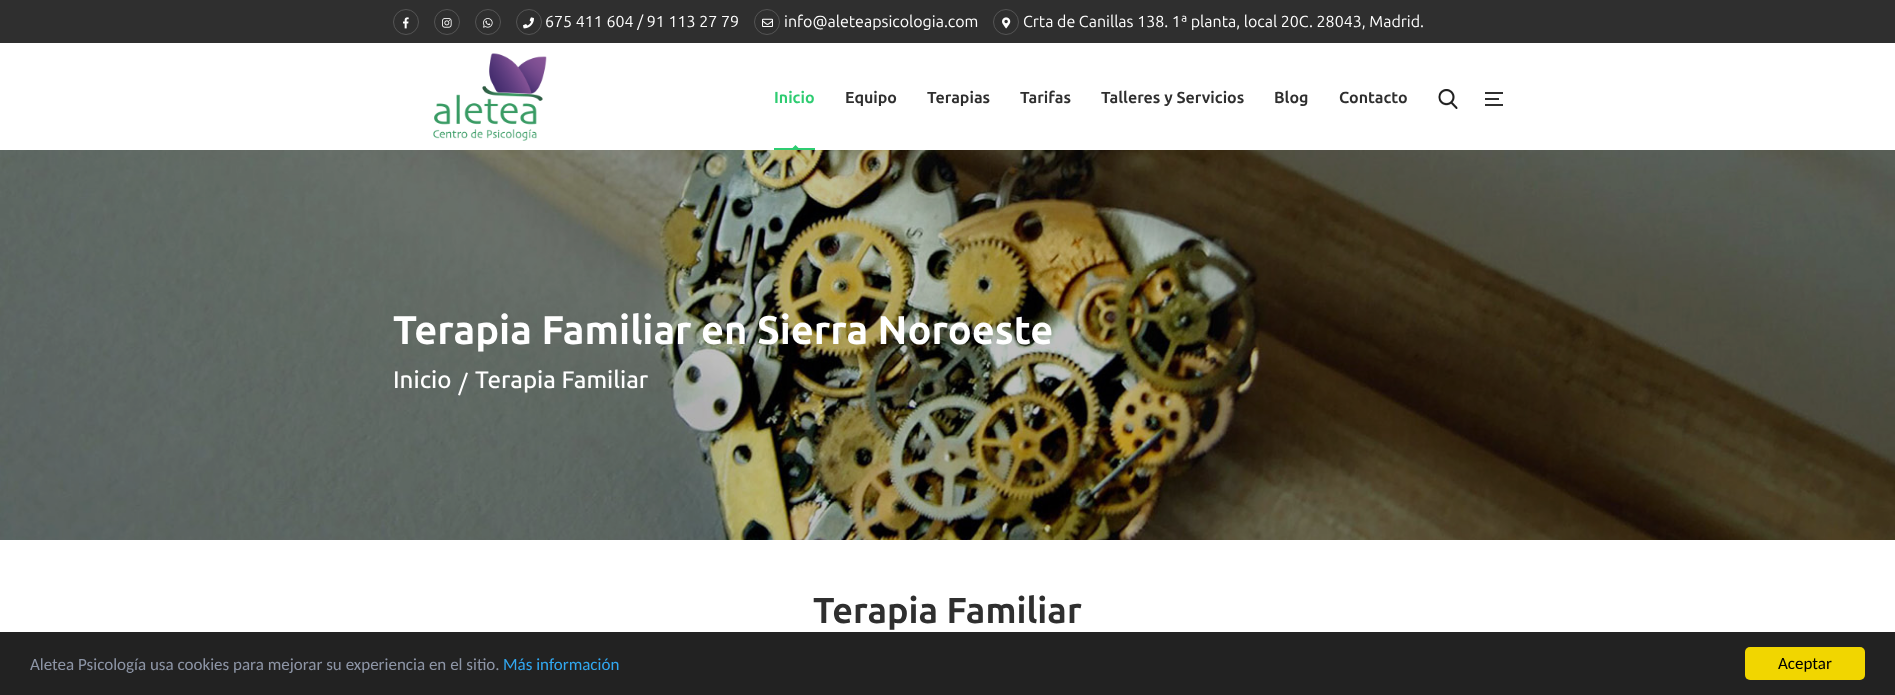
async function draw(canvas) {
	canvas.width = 1895;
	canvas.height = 695;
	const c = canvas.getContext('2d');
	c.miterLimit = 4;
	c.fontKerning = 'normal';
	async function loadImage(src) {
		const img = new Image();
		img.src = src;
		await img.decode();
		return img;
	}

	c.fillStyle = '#fff';
	c.fillRect(0, 0, 1895, 695);
	c.fillStyle = '#2f2f2f';
	c.fillRect(0, 0, 1895, 43);
	c.beginPath();
	c.arc(406, 22, 12.5, 0, 2 * Math.PI);
	c.strokeStyle = '#555';
	c.stroke();
	c.drawImage(await loadImage('img1.png'), 403, 17, 6, 12);
	c.beginPath();
	c.arc(447, 22, 12.5, 0, 2 * Math.PI);
	c.stroke();
	c.drawImage(await loadImage('img2.png'), 442, 18, 10, 10);
	c.beginPath();
	c.arc(488, 22, 12.5, 0, 2 * Math.PI);
	c.stroke();
	c.drawImage(await loadImage('img3.png'), 483, 18, 10, 10);
	c.beginPath();
	c.arc(529, 22, 12.5, 0, 2 * Math.PI);
	c.stroke();
	c.drawImage(await loadImage('img4.png'), 523, 17, 11, 12);
	c.font = '16px Ubuntu';
	c.fillStyle = '#fff';
	c.fillText('675 411 604 / 91 113 27 79', 545, 27);
	c.beginPath();
	c.arc(767, 22, 12.5, 0, 2 * Math.PI);
	c.stroke();
	c.drawImage(await loadImage('img5.png'), 762, 18, 11, 9);
	c.fillText('info@aleteapsicologia.com', 784, 27);
	c.beginPath();
	c.arc(1006, 22, 12.5, 0, 2 * Math.PI);
	c.stroke();
	c.drawImage(await loadImage('img6.png'), 1002, 17, 9, 12);
	c.fillText('Crta de Canillas 138. 1ª planta, local 20C. 28043, Madrid.', 1023, 27);
	c.drawImage(await loadImage('img7.png'), 433, 53, 114, 88);
	c.font = 'bold 16px Ubuntu';
	c.fillStyle = '#2ecc71';
	c.fillText('Inicio', 774, 103);
	c.fillRect(774, 148, 41, 2);
	c.beginPath();
	c.moveTo(795.5, 145);
	c.lineTo(799, 148.5);
	c.lineTo(795.5, 152.5);
	c.lineTo(792, 148.5);
	c.closePath();
	c.fill();
	c.fillStyle = '#2f2f2f';
	for (const [text, x, y] of [
		['Equipo', 845, 103],
		['Terapias', 927, 103],
		['Tarifas', 1020, 103],
		['Talleres y Servicios', 1101, 103],
		['Blog', 1274, 103],
		['Contacto', 1339, 103],
	]) {
		c.fillText(text, x, y);
	}
	c.drawImage(await loadImage('img8.png'), 1438, 89, 20, 20);
	c.drawImage(await loadImage('img9.png'), 1485, 92, 18, 14);
	c.drawImage(await loadImage('img10.png'), 0, 150, 1895, 390);
	c.font = 'bold 40px Ubuntu';
	c.fillStyle = '#fff';
	c.fillText('Terapia Familiar en Sierra Noroeste', 393, 344);
	c.font = '500 24px Ubuntu';
	c.fillText('Inicio', 393, 388);
	c.beginPath();
	c.moveTo(466, 372.5);
	c.lineTo(468, 373);
	c.lineTo(460, 395.5);
	c.lineTo(458, 395);
	c.closePath();
	c.fill();
	c.fillText('Terapia Familiar', 475, 388);
	c.font = 'bold 36px Ubuntu';
	c.fillStyle = '#2f2f2f';
	c.fillText('Terapia Familiar', 813, 623);
	c.fillStyle = '#222';
	c.fillRect(0, 632, 1895, 63);
	c.font = '17px Carlito';
	c.fillStyle = '#8d95a6';
	c.fillText('Aletea Psicología usa cookies para mejorar su experiencia en el sitio.', 30, 670);
	c.fillStyle = '#31a8f0';
	c.fillText('Más información', 503, 670);
	c.fillStyle = '#f1d600';
	c.beginPath();
	c.roundRect(1745, 647, 120, 33, 5);
	c.fill();
	c.fillStyle = '#000';
	c.fillText('Aceptar', 1778, 669);
}

draw(document.querySelector('canvas'));
